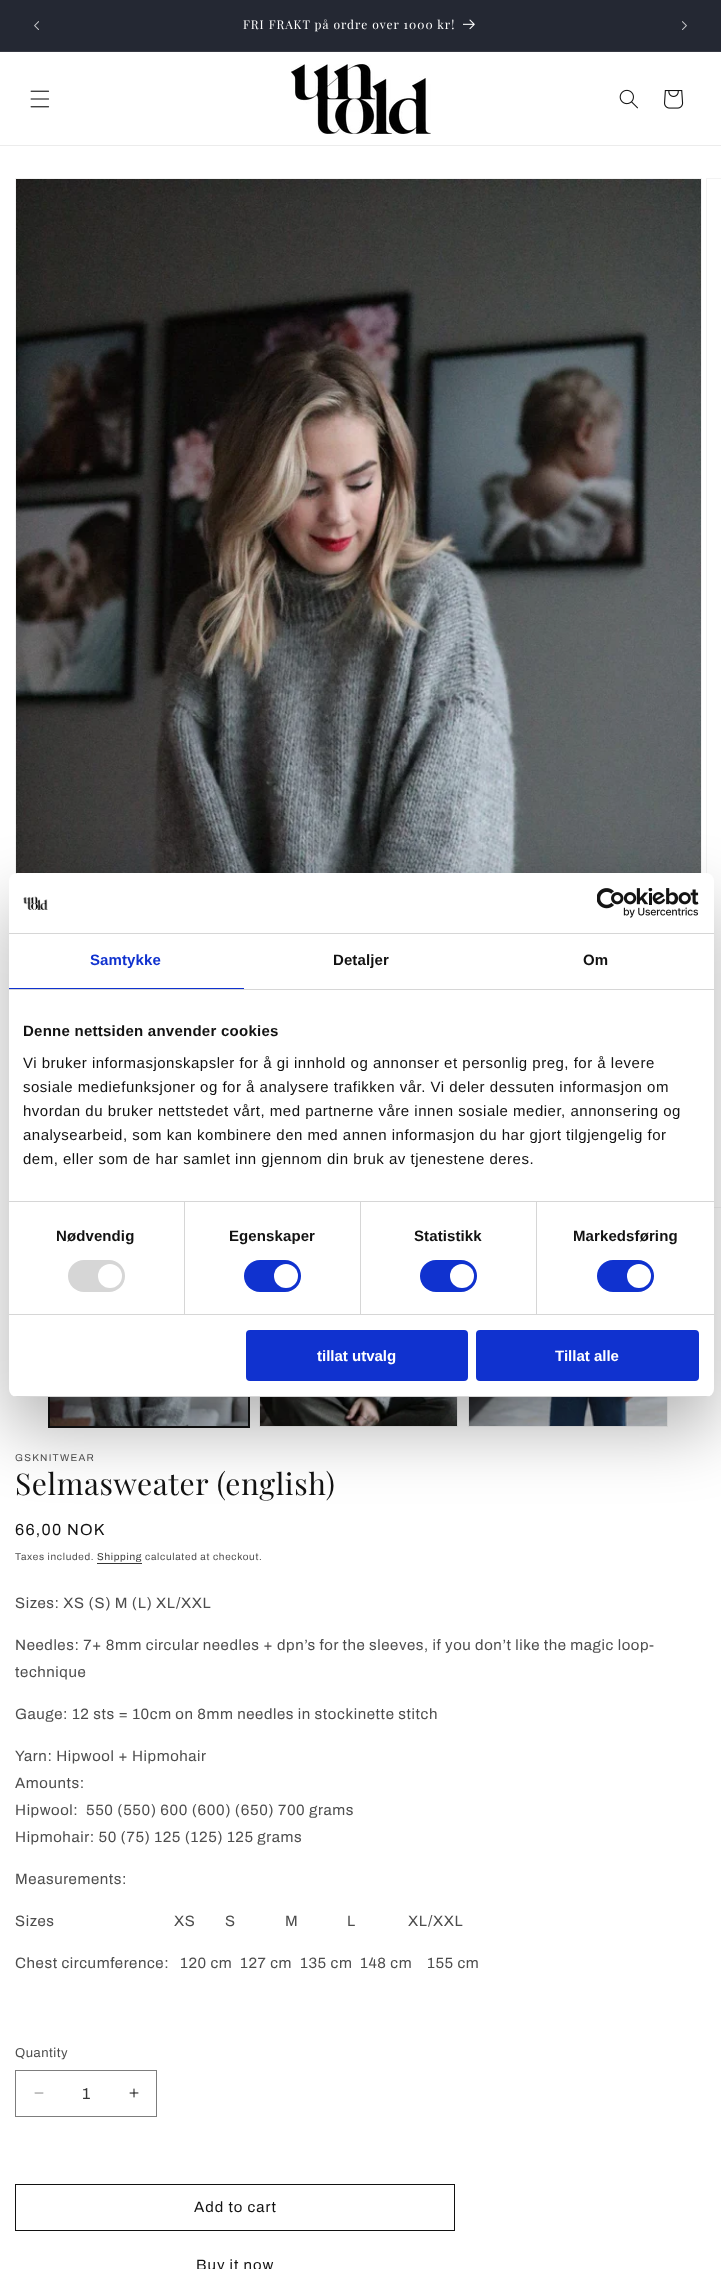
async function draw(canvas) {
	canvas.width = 721;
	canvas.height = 2269;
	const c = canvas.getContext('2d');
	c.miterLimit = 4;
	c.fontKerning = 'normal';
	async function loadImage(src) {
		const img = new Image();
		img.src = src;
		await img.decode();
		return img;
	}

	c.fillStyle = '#fff';
	c.fillRect(0, 0, 721, 2269);
	c.fillStyle = '#242833';
	c.fillRect(0, 0, 721, 51);
	c.fillStyle = '#363943';
	c.fillRect(0, 51, 721, 1);
	c.drawImage(await loadImage('img1.png'), 34, 21, 5, 9);
	c.letterSpacing = '1px';
	c.font = '12px Playfair Display';
	c.fillStyle = '#fff';
	c.fillText('FRI FRAKT på ordre over 1000 kr!', 243, 29);
	c.drawImage(await loadImage('img2.png'), 463, 19, 12, 11);
	c.drawImage(await loadImage('img3.png'), 682, 21, 5, 9);
	c.fillStyle = '#ececec';
	c.fillRect(0, 145, 721, 1);
	c.drawImage(await loadImage('img4.png'), 30, 90, 20, 18);
	c.drawImage(await loadImage('img5.png'), 291, 64, 140, 70);
	c.drawImage(await loadImage('img6.png'), 619, 89, 19, 20);
	c.drawImage(await loadImage('img7.png'), 664, 90, 20, 19);
	c.strokeStyle = '#f3f3f3';
	c.strokeRect(15.5, 178.5, 686, 1029);
	c.drawImage(await loadImage('img10.png'), 16, 179, 685, 695);
	c.strokeRect(706.5, 178.5, 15, 1029);
	c.strokeStyle = '#121212';
	c.strokeRect(48.5, 1227.5, 201, 200);
	c.strokeRect(49.5, 1228.5, 199, 198);
	c.drawImage(await loadImage('img11.png'), 50, 1397, 198, 29);
	c.strokeStyle = '#f3f3f3';
	c.strokeRect(259.5, 1228.5, 198, 198);
	c.drawImage(await loadImage('img12.png'), 260, 1397, 197, 29);
	c.strokeRect(468.5, 1228.5, 199, 198);
	c.drawImage(await loadImage('img13.png'), 469, 1397, 198, 29);
	c.fillStyle = '#0000004d';
	c.filter = 'blur(34px)';
	c.beginPath();
	c.roundRect(9, 905, 705, 524, 8);
	c.fill();
	c.filter = 'none';
	c.fillStyle = '#fff';
	c.beginPath();
	c.roundRect(9, 873, 705, 524, 8);
	c.fill();
	c.fillStyle = '#d6d6d6';
	c.fillRect(9, 933, 705, 1);
	c.drawImage(await loadImage('img8.png'), 23, 896, 25, 14);
	c.drawImage(await loadImage('img9.png'), 597, 888, 102, 30);
	c.fillRect(9, 989, 705, 1);
	c.fillStyle = '#1032cf';
	c.fillRect(9, 988, 235, 1);
	c.letterSpacing = '0.1px';
	c.font = 'bold 15px Liberation Sans';
	c.fillText('Samtykke', 90, 965);
	c.fillStyle = '#121212';
	c.fillText('Detaljer', 333, 965);
	c.fillText('Om', 583, 965);
	c.fillStyle = '#d6d6d6';
	c.fillRect(9, 1201, 705, 1);
	c.letterSpacing = '0.25px';
	c.fillStyle = '#121212';
	c.fillText('Denne nettsiden anvender cookies', 23, 1036);
	c.letterSpacing = '0.5px';
	c.font = '15px Liberation Sans';
	for (const [text, x, y] of [
		['Vi bruker informasjonskapsler for å gi innhold og annonser et personlig preg, for å levere', 23, 1068],
		['sosiale mediefunksjoner og for å analysere trafikken vår. Vi deler dessuten informasjon om', 23, 1092],
		['hvordan du bruker nettstedet vårt, med partnerne våre innen sosiale medier, annonsering og', 23, 1116],
		['analysearbeid, som kan kombinere den med annen informasjon du har gjort tilgjengelig for', 23, 1140],
		['dem, eller som de har samlet inn gjennom din bruk av tjenestene deres.', 23, 1164],
	]) {
		c.fillText(text, x, y);
	}
	c.fillStyle = '#d6d6d6';
	c.fillRect(9, 1314, 705, 1);
	c.fillRect(184, 1202, 1, 112);
	c.letterSpacing = '0.1px';
	c.font = 'bold 15px Liberation Sans';
	c.fillStyle = '#121212';
	c.fillText('Nødvendig', 56, 1241);
	c.fillStyle = '#d6d6d6';
	c.beginPath();
	c.roundRect(68, 1260, 57, 32, 16);
	c.fill();
	c.fillStyle = '#fff';
	c.beginPath();
	c.arc(110, 1276, 12, 0, 2 * Math.PI);
	c.fill();
	c.fillStyle = '#d6d6d6';
	c.fillRect(360, 1202, 1, 112);
	c.fillStyle = '#121212';
	c.fillText('Egenskaper', 229, 1241);
	c.fillStyle = '#1032cf';
	c.beginPath();
	c.roundRect(244, 1260, 57, 32, 16);
	c.fill();
	c.fillStyle = '#fff';
	c.beginPath();
	c.arc(286, 1276, 12, 0, 2 * Math.PI);
	c.fill();
	c.fillStyle = '#d6d6d6';
	c.fillRect(536, 1202, 1, 112);
	c.fillStyle = '#121212';
	c.fillText('Statistikk', 414, 1241);
	c.fillStyle = '#1032cf';
	c.beginPath();
	c.roundRect(420, 1260, 57, 32, 16);
	c.fill();
	c.fillStyle = '#fff';
	c.beginPath();
	c.arc(462, 1276, 12, 0, 2 * Math.PI);
	c.fill();
	c.fillStyle = '#121212';
	c.fillText('Markedsføring', 573, 1241);
	c.fillStyle = '#1032cf';
	c.beginPath();
	c.roundRect(597, 1260, 57, 32, 16);
	c.fill();
	c.fillStyle = '#fff';
	c.beginPath();
	c.arc(639, 1276, 12, 0, 2 * Math.PI);
	c.fill();
	c.save();
	c.beginPath();
	c.roundRect(9, 873, 705, 524, 8);
	c.clip();
	c.fillStyle = '#d6d6d6';
	c.fillRect(9, 1396, 705, 1);
	c.restore();
	c.fillStyle = '#1032cf';
	c.beginPath();
	c.roundRect(247, 1331, 220, 49, 3);
	c.fill();
	c.strokeStyle = '#1032cf';
	c.lineWidth = 2;
	c.stroke();
	c.letterSpacing = '0px';
	c.fillStyle = '#fff';
	c.fillText('tillat utvalg', 317, 1361);
	c.fillStyle = '#1032cf';
	c.beginPath();
	c.roundRect(477, 1331, 221, 49, 3);
	c.fill();
	c.stroke();
	c.fillStyle = '#fff';
	c.fillText('Tillat alle', 555, 1361);
	c.letterSpacing = '1.25px';
	c.font = '10px Archivo';
	c.fillStyle = '#4d4d4d';
	c.fillText('GSKNITWEAR', 15, 1461);
	c.letterSpacing = '0.6px';
	c.font = '30px Playfair Display';
	c.fillStyle = '#121212';
	c.fillText('Selmasweater (english)', 15, 1495);
	c.letterSpacing = '1.25px';
	c.font = '16px Archivo';
	c.fillText('66,00 NOK', 15, 1535);
	c.letterSpacing = '0.7px';
	c.font = '10px Archivo';
	c.fillStyle = '#4d4d4d';
	c.fillText('Taxes included.', 15, 1560);
	c.fillStyle = '#363636';
	c.fillText('Shipping', 97, 1560);
	c.fillRect(97, 1563, 45, 1);
	c.fillStyle = '#4d4d4d';
	c.fillText('calculated at checkout.', 145, 1560);
	c.letterSpacing = '0.6px';
	c.font = '15px Archivo';
	for (const [text, x, y] of [
		['Sizes: XS (S) M (L) XL/XXL', 15, 1608],
		['Needles: 7+ 8mm circular needles + dpn’s for the sleeves, if you don’t like the magic loop-', 15, 1650],
		['technique', 15, 1677],
		['Gauge: 12 sts = 10cm on 8mm needles in stockinette stitch', 15, 1719],
		['Yarn: Hipwool + Hipmohair', 15, 1761],
		['Amounts:', 15, 1788],
		['Hipwool:', 15, 1815],
		['550 (550) 600 (600) (650) 700 grams', 86, 1815],
		['Hipmohair: 50 (75) 125 (125) 125 grams', 15, 1842],
		['Measurements:', 15, 1884],
		['Sizes', 15, 1926],
		['XS', 174, 1926],
		['S', 225, 1926],
		['M', 285, 1926],
		['L', 347, 1926],
		['XL/XXL', 408, 1926],
		['Chest circumference:', 15, 1968],
		['120 cm', 180, 1968],
		['127 cm', 240, 1968],
		['135 cm', 300, 1968],
		['148 cm', 360, 1968],
		['155 cm', 427, 1968],
	]) {
		c.fillText(text, x, y);
	}
	c.letterSpacing = '0.5px';
	c.font = '13px Archivo';
	c.fillText('Quantity', 15, 2057);
	c.drawImage(await loadImage('img14.png'), 34, 2092, 10, 2);
	c.drawImage(await loadImage('img15.png'), 129, 2088, 10, 10);
	c.strokeStyle = '#7d7d7d';
	c.lineWidth = 1;
	c.strokeRect(15.5, 2070.5, 141, 46);
	c.letterSpacing = '0px';
	c.font = '16px Archivo';
	c.fillStyle = '#363636';
	c.fillText('1', 82, 2099);
	c.strokeStyle = '#121212';
	c.strokeRect(15.5, 2184.5, 439, 46);
	c.letterSpacing = '1px';
	c.font = '15px Archivo';
	c.fillStyle = '#121212';
	c.fillText('Add to cart', 194, 2212);
	c.fillText('Buy it now', 196, 2270);
}

draw(document.querySelector('canvas'));
